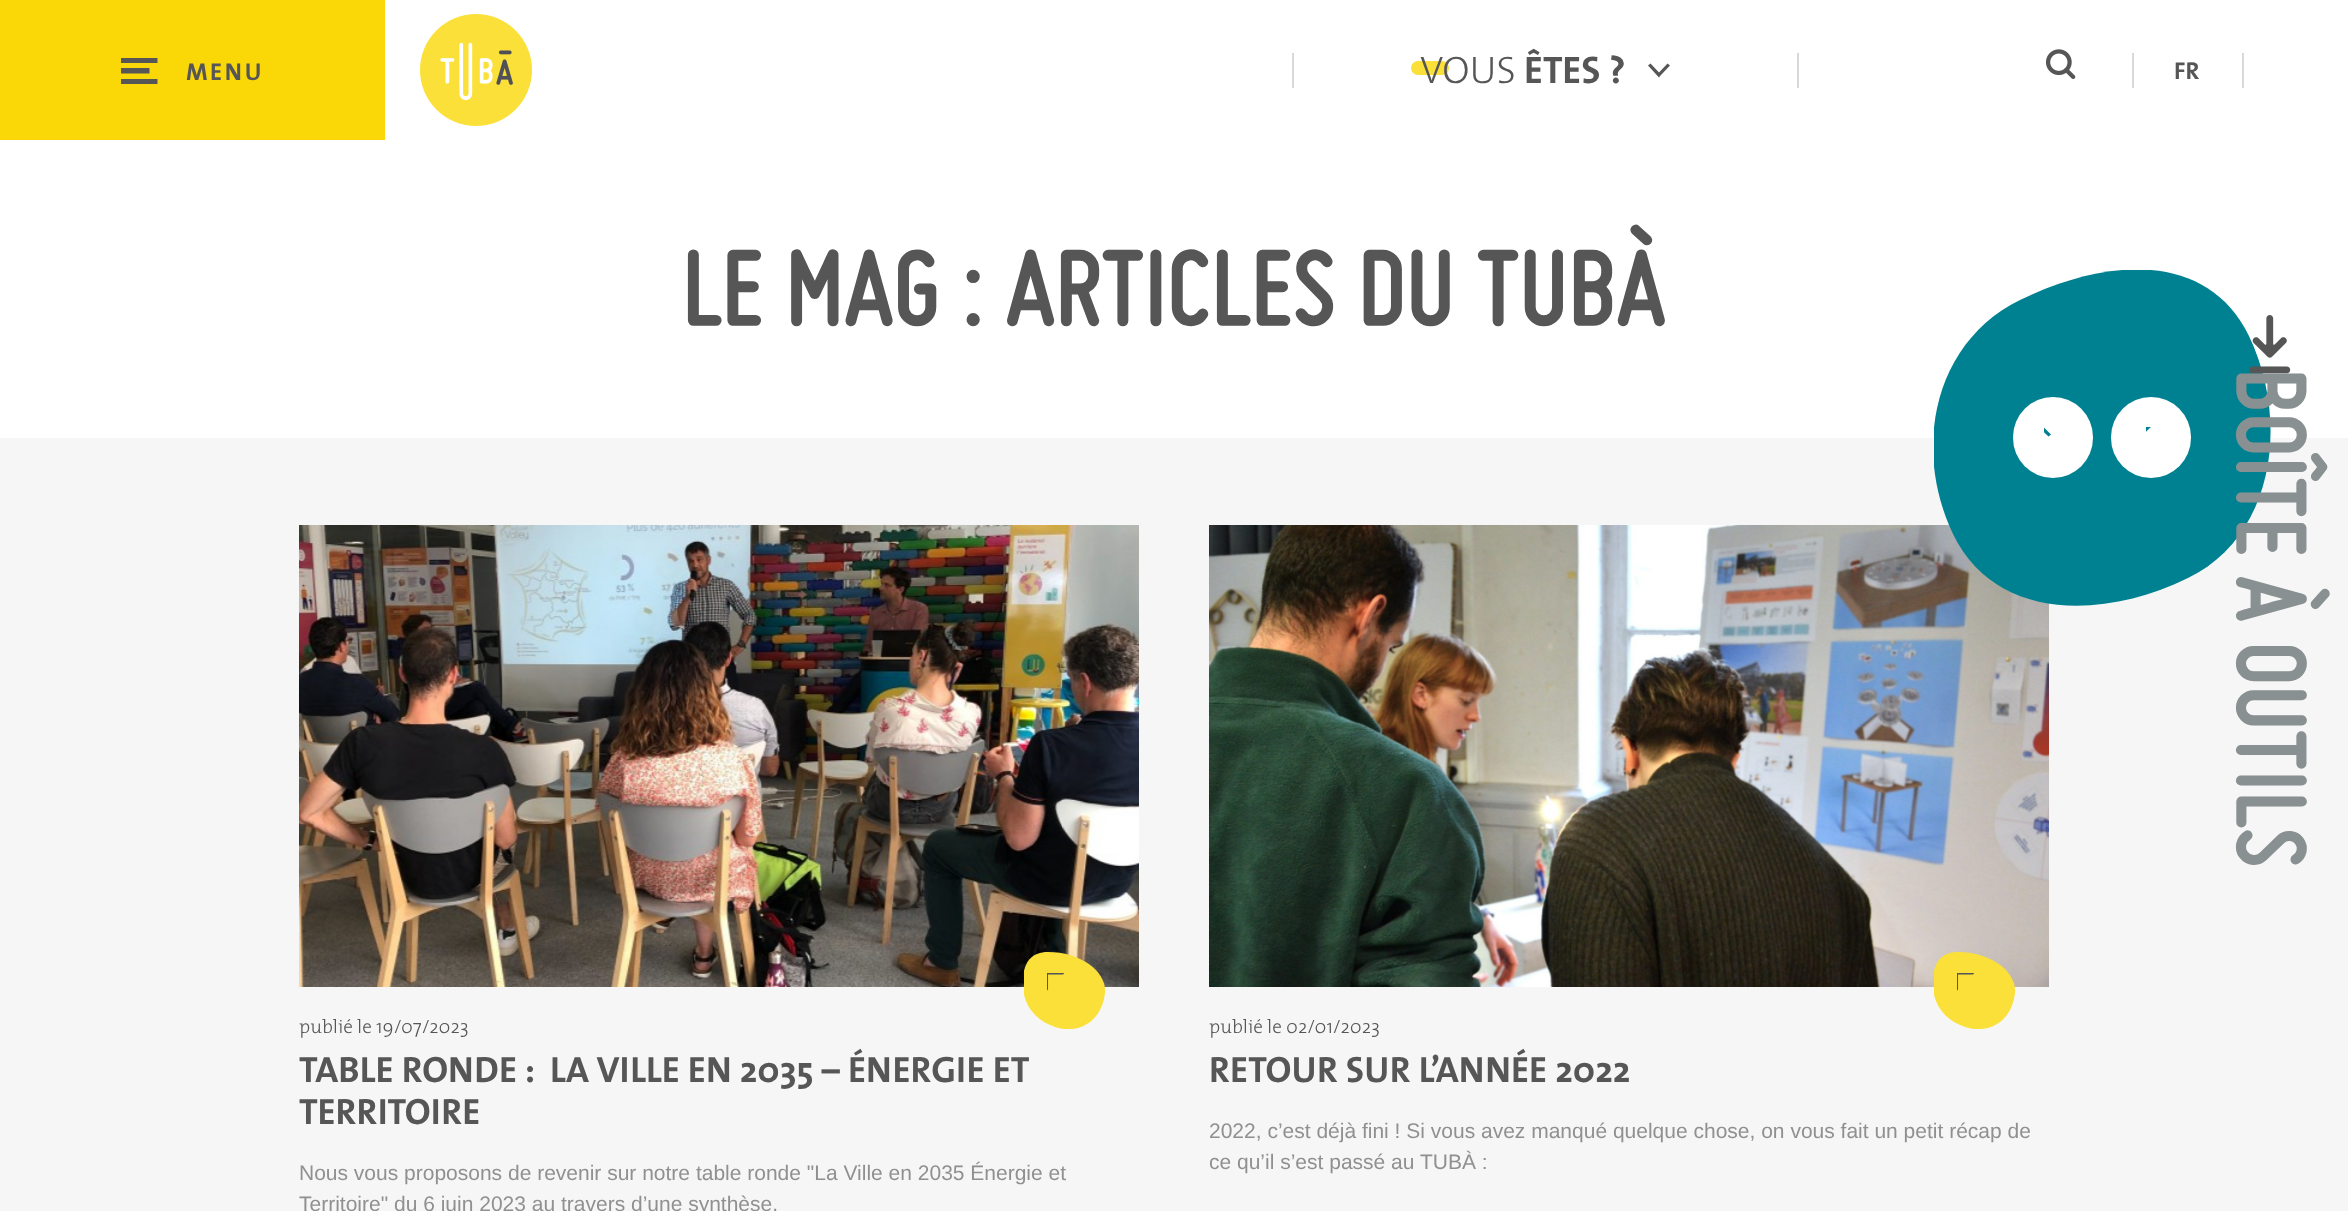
async function draw(canvas) {
	canvas.width = 2348;
	canvas.height = 1211;
	const c = canvas.getContext('2d');
	c.miterLimit = 4;
	c.fontKerning = 'normal';
	async function loadImage(src) {
		const img = new Image();
		img.src = src;
		await img.decode();
		return img;
	}

	c.fillStyle = '#fff';
	c.fillRect(0, 0, 2348, 1211);
	c.fillStyle = '#fad807';
	c.fillRect(0, 0, 385, 140);
	c.fillStyle = '#575656';
	c.beginPath();
	c.moveTo(157.5, 58);
	c.lineTo(121, 58);
	c.lineTo(121, 63);
	c.lineTo(157.5, 63);
	c.closePath();
	c.moveTo(157.5, 79);
	c.lineTo(121, 79);
	c.lineTo(121, 84);
	c.lineTo(157.5, 84);
	c.closePath();
	c.moveTo(121, 68);
	c.lineTo(149.5, 68);
	c.lineTo(149.5, 73.5);
	c.lineTo(121, 73.5);
	c.closePath();
	c.fill();
	c.letterSpacing = '2.5px';
	c.font = 'bold 24.5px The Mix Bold';
	c.fillText('MENU', 186, 80);
	c.drawImage(await loadImage('img1.png'), 420, 14, 112, 112);
	c.fillStyle = '#fbe039';
	c.beginPath();
	c.roundRect(1411, 61, 38, 14, 7);
	c.fill();
	c.letterSpacing = '0px';
	c.font = '300 38.5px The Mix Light';
	c.fillStyle = '#575656';
	c.fillText('VOUS', 1420, 83);
	c.font = 'bold 38.5px The Mix Bold';
	c.fillText('ÊTES ?', 1524, 83);
	c.fillStyle = '#d9d9d9';
	c.fillRect(1797, 53, 2, 35);
	c.fillRect(1292, 53, 2, 35);
	c.fillStyle = '#575656';
	c.beginPath();
	c.moveTo(1670, 65.5);
	c.lineTo(1667.5, 63.5);
	c.lineTo(1659, 72.5);
	c.lineTo(1650.5, 63.5);
	c.lineTo(1648, 65.5);
	c.lineTo(1659, 77.5);
	c.lineTo(1660, 76);
	c.closePath();
	c.fill();
	c.drawImage(await loadImage('img2.png'), 2046, 49, 30, 30);
	c.fillStyle = '#d9d9d9';
	c.fillRect(2242, 53, 2, 35);
	c.fillRect(2132, 53, 2, 35);
	c.font = 'bold 24.5px The Mix Bold';
	c.fillStyle = '#575656';
	c.fillText('FR', 2174, 79);
	c.font = 'bold 113.75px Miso';
	c.fillText('LE MAG : ARTICLES DU TUBÀ', 682, 324);
	c.fillStyle = '#f6f6f6';
	c.fillRect(0, 438, 2348, 773);
	c.drawImage(await loadImage('img5.png'), 1209, 525, 840, 462);
	c.save();
	c.beginPath();
	c.rect(1934, 270, 338, 336);
	c.clip();
	c.fillStyle = '#008191';
	c.beginPath();
	c.moveTo(2188, 578);
	c.bezierCurveTo(2274, 536, 2290, 422, 2249, 336);
	c.bezierCurveTo(2207, 250, 2106, 258, 2020, 300);
	c.bezierCurveTo(1934, 342, 1912, 448, 1953, 534);
	c.bezierCurveTo(1995, 621, 2102, 620, 2188, 578);
	c.closePath();
	c.fill();
	c.restore();
	c.fillStyle = '#fff';
	c.beginPath();
	c.roundRect(2013, 397, 80, 81, 40);
	c.fill();
	c.save();
	c.beginPath();
	c.rect(2044, 427, 14, 22);
	c.clip();
	c.fillStyle = '#008191';
	c.beginPath();
	c.moveTo(2048.5, 415);
	c.lineTo(2051, 417);
	c.lineTo(2042, 425.5);
	c.lineTo(2051, 434.5);
	c.lineTo(2048.5, 436.5);
	c.lineTo(2037, 425.5);
	c.lineTo(2038.5, 424.5);
	c.closePath();
	c.fill();
	c.restore();
	c.beginPath();
	c.roundRect(2111, 397, 80, 81, 40);
	c.fill();
	c.save();
	c.beginPath();
	c.rect(2146, 427, 14, 22);
	c.clip();
	c.fillStyle = '#008191';
	c.beginPath();
	c.moveTo(2141, 415);
	c.lineTo(2138.5, 417);
	c.lineTo(2147.5, 425.5);
	c.lineTo(2138.5, 434.5);
	c.lineTo(2141, 436.5);
	c.lineTo(2152.5, 425.5);
	c.lineTo(2151, 424.5);
	c.closePath();
	c.fill();
	c.restore();
	c.drawImage(await loadImage('img3.png'), 299, 525, 840, 462);
	c.font = '300 19.25px The Mix Light';
	c.fillStyle = '#575656';
	c.fillText('publié le 19/07/2023', 299, 1033);
	c.save();
	c.beginPath();
	c.rect(1024, 952, 82, 77);
	c.clip();
	c.fillStyle = '#fbe039';
	c.beginPath();
	c.moveTo(1105, 993);
	c.bezierCurveTo(1101, 1025, 1075, 1034, 1055, 1027);
	c.bezierCurveTo(1035, 1020, 1020, 1004, 1023, 975);
	c.bezierCurveTo(1025, 965, 1029, 952, 1048, 952);
	c.bezierCurveTo(1081, 952, 1107, 972, 1105, 993);
	c.closePath();
	c.fill('evenodd');
	c.restore();
	c.drawImage(await loadImage('img4.png'), 1047, 973, 17, 18);
	c.font = 'bold 36.75px The Mix Bold';
	c.fillText('TABLE RONDE :', 299, 1082);
	c.fillText('LA VILLE EN 2035 – ÉNERGIE ET', 550, 1082);
	c.fillText('TERRITOIRE', 299, 1124);
	c.font = '21px Liberation Sans';
	c.fillStyle = '#909090';
	c.fillText('Nous vous proposons de revenir sur notre table ronde "La Ville en 2035 Énergie et', 299, 1180);
	c.fillText('Territoire" du 6 juin 2023 au travers d’une synthèse.', 299, 1211);
	c.font = '300 19.25px The Mix Light';
	c.fillStyle = '#575656';
	c.fillText('publié le 02/01/2023', 1209, 1033);
	c.save();
	c.beginPath();
	c.rect(1934, 952, 82, 77);
	c.clip();
	c.fillStyle = '#fbe039';
	c.beginPath();
	c.moveTo(2015, 993);
	c.bezierCurveTo(2011, 1025, 1985, 1034, 1965, 1027);
	c.bezierCurveTo(1945, 1020, 1930, 1004, 1933, 975);
	c.bezierCurveTo(1935, 965, 1939, 952, 1958, 952);
	c.bezierCurveTo(1991, 952, 2017, 972, 2015, 993);
	c.closePath();
	c.fill('evenodd');
	c.restore();
	c.drawImage(await loadImage('img4.png'), 1957, 973, 17, 18);
	c.font = 'bold 36.75px The Mix Bold';
	c.fillText('RETOUR SUR L’ANNÉE 2022', 1209, 1082);
	c.font = '21px Liberation Sans';
	c.fillStyle = '#909090';
	c.fillText('2022, c’est déjà fini ! Si vous avez manqué quelque chose, on vous fait un petit récap de', 1209, 1138);
	c.fillText('ce qu’il s’est passé au TUBÀ :', 1209, 1169);
	c.drawImage(await loadImage('img6.png'), 2249, 315, 42, 59);
	c.font = 'bold 105px Miso';
	c.fillStyle = '#899091';
	c.save();
	c.translate(2238, 368);
	c.rotate(90 * Math.PI / 180);
	c.fillText('BOÎTE À OUTILS', 0, 0);
	c.restore();
}

draw(document.querySelector('canvas'));
